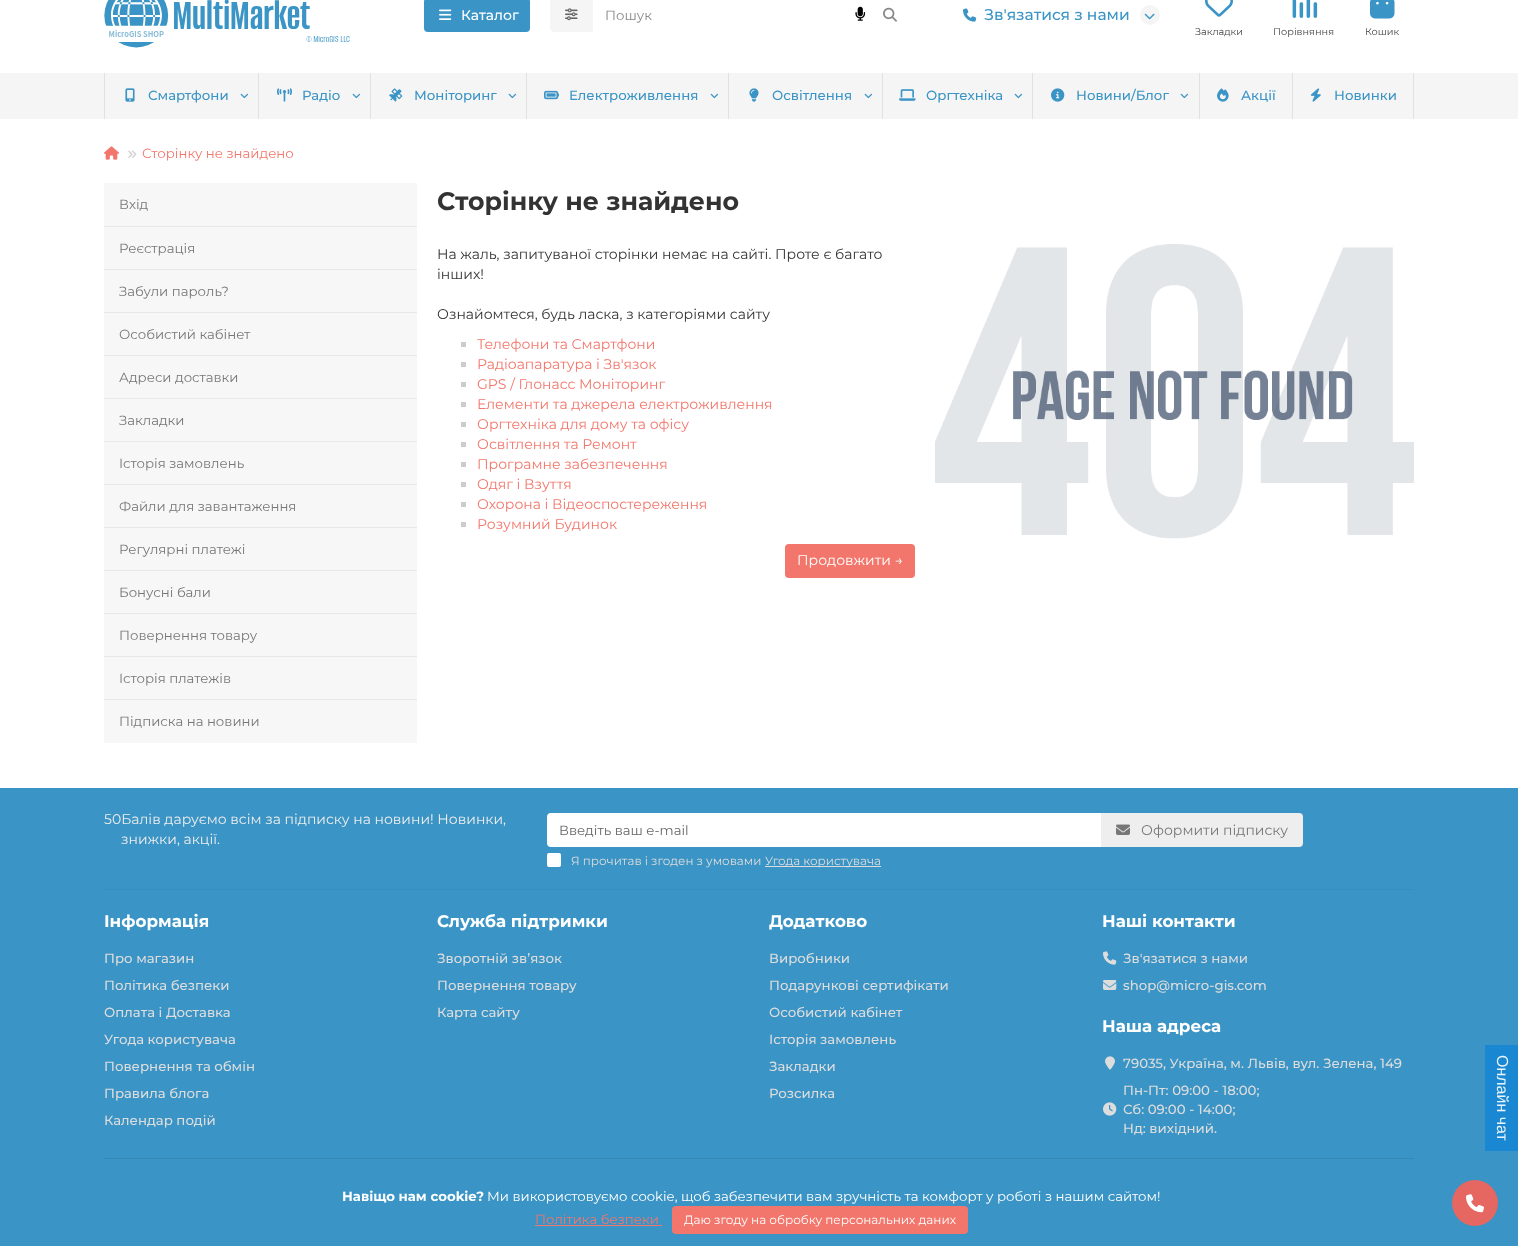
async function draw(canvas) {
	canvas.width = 1518;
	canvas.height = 1246;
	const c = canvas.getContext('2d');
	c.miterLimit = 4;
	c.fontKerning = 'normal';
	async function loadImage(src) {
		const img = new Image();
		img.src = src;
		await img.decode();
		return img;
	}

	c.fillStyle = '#fff';
	c.fillRect(0, 0, 1518, 1246);
	c.drawImage(await loadImage('img1.png'), 104, 0, 246, 48);
	c.fillStyle = '#3a94c5';
	c.beginPath();
	c.roundRect(424, -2, 106, 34, 4);
	c.fill();
	c.drawImage(await loadImage('img2.png'), 439, 9, 13, 11);
	c.font = '500 14px Montserrat';
	c.fillStyle = '#fff';
	c.fillText('Каталог', 461, 20);
	c.fillStyle = '#f5f5f5';
	c.beginPath();
	c.moveTo(554, -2);
	c.lineTo(593, -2);
	c.lineTo(593, 32);
	c.lineTo(554, 32);
	c.bezierCurveTo(552, 32, 550, 30, 550, 28);
	c.lineTo(550, 2);
	c.bezierCurveTo(550, 0, 552, -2, 554, -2);
	c.closePath();
	c.fill();
	c.drawImage(await loadImage('img3.png'), 565, 8, 13, 13);
	c.font = '13.3px Montserrat';
	c.fillStyle = '#888';
	c.fillText('Пошук', 605, 20);
	c.drawImage(await loadImage('img4.png'), 855, 6, 11, 15);
	c.drawImage(await loadImage('img5.png'), 883, 7, 14, 15);
	c.drawImage(await loadImage('img6.png'), 963, 8, 14, 14);
	c.font = '500 15.5px Montserrat';
	c.fillStyle = '#3a94c5';
	c.fillText('Зв\'язатися з нами', 984, 20);
	c.fillStyle = '#f5f5f5';
	c.beginPath();
	c.arc(1150, 15, 10, 0, 2 * Math.PI);
	c.fill();
	c.drawImage(await loadImage('img7.png'), 1144, 13, 11, 7);
	c.drawImage(await loadImage('img8.png'), 1205, 0, 28, 17);
	c.font = '9.75px Montserrat';
	c.fillStyle = '#444';
	c.fillText('Закладки', 1195, 35);
	c.drawImage(await loadImage('img9.png'), 1292, 0, 26, 18);
	c.fillText('Порівняння', 1273, 35);
	c.drawImage(await loadImage('img10.png'), 1370, 0, 25, 19);
	c.fillText('Кошик', 1365, 35);
	c.fillStyle = '#f5f5f5';
	c.fillRect(0, 73, 1518, 46);
	c.fillStyle = '#e1e1e1';
	c.fillRect(104, 73, 1, 46);
	c.drawImage(await loadImage('img11.png'), 125, 88, 10, 14);
	c.font = '500 13.3px Montserrat';
	c.fillStyle = '#3a94c5';
	c.fillText('Смартфони', 148, 100);
	c.drawImage(await loadImage('img12.png'), 240, 93, 9, 6);
	c.fillStyle = '#e1e1e1';
	c.fillRect(258, 73, 1, 46);
	c.drawImage(await loadImage('img13.png'), 277, 88, 15, 14);
	c.fillStyle = '#3a94c5';
	c.fillText('Радіо', 302, 100);
	c.drawImage(await loadImage('img12.png'), 352, 93, 9, 6);
	c.fillStyle = '#e1e1e1';
	c.fillRect(370, 73, 1, 46);
	c.drawImage(await loadImage('img14.png'), 389, 88, 14, 14);
	c.fillStyle = '#3a94c5';
	c.fillText('Моніторинг', 414, 100);
	c.drawImage(await loadImage('img12.png'), 508, 93, 9, 6);
	c.fillStyle = '#e1e1e1';
	c.fillRect(526, 73, 1, 46);
	c.drawImage(await loadImage('img15.png'), 544, 90, 15, 10);
	c.fillStyle = '#3a94c5';
	c.fillText('Електроживлення', 569, 100);
	c.drawImage(await loadImage('img12.png'), 710, 93, 9, 6);
	c.fillStyle = '#e1e1e1';
	c.fillRect(728, 73, 1, 46);
	c.drawImage(await loadImage('img16.png'), 749, 88, 10, 14);
	c.fillStyle = '#3a94c5';
	c.fillText('Освітлення', 772, 100);
	c.drawImage(await loadImage('img12.png'), 864, 93, 9, 6);
	c.fillStyle = '#e1e1e1';
	c.fillRect(882, 73, 1, 46);
	c.drawImage(await loadImage('img17.png'), 899, 89, 17, 12);
	c.fillStyle = '#3a94c5';
	c.fillText('Оргтехніка', 926, 100);
	c.drawImage(await loadImage('img12.png'), 1014, 93, 9, 6);
	c.fillStyle = '#e1e1e1';
	c.fillRect(1032, 73, 1, 46);
	c.drawImage(await loadImage('img18.png'), 1051, 88, 14, 14);
	c.fillStyle = '#3a94c5';
	c.fillText('Новини/Блог', 1076, 100);
	c.drawImage(await loadImage('img12.png'), 1180, 93, 9, 6);
	c.fillStyle = '#e1e1e1';
	c.fillRect(1199, 73, 1, 46);
	c.drawImage(await loadImage('img19.png'), 1217, 88, 12, 14);
	c.fillStyle = '#3a94c5';
	c.fillText('Акції', 1241, 100);
	c.fillStyle = '#e1e1e1';
	c.fillRect(1292, 73, 1, 46);
	c.fillRect(1413, 73, 1, 46);
	c.drawImage(await loadImage('img20.png'), 1310, 88, 11, 14);
	c.fillStyle = '#3a94c5';
	c.fillText('Новинки', 1334, 100);
	c.drawImage(await loadImage('img21.png'), 104, 146, 15, 14);
	c.drawImage(await loadImage('img22.png'), 128, 150, 9, 8);
	c.font = '13.3px Montserrat';
	c.fillStyle = '#f2766b';
	c.fillText('Сторінку не знайдено', 142, 158);
	c.fillStyle = '#f7f7f7';
	c.fillRect(104, 183, 313, 560);
	c.fillStyle = '#777';
	c.fillText('Вхід', 119, 209);
	c.fillStyle = '#e8e8e8';
	c.fillRect(104, 226, 313, 1);
	c.fillStyle = '#777';
	c.fillText('Реєстрація', 119, 253);
	c.fillStyle = '#e8e8e8';
	c.fillRect(104, 269, 313, 1);
	c.fillStyle = '#777';
	c.fillText('Забули пароль?', 119, 296);
	c.fillStyle = '#e8e8e8';
	c.fillRect(104, 312, 313, 1);
	c.fillStyle = '#777';
	c.fillText('Особистий кабінет', 119, 339);
	c.fillStyle = '#e8e8e8';
	c.fillRect(104, 355, 313, 1);
	c.fillStyle = '#777';
	c.fillText('Адреси доставки', 119, 382);
	c.fillStyle = '#e8e8e8';
	c.fillRect(104, 398, 313, 1);
	c.fillStyle = '#777';
	c.fillText('Закладки', 119, 425);
	c.fillStyle = '#e8e8e8';
	c.fillRect(104, 441, 313, 1);
	c.fillStyle = '#777';
	c.fillText('Історія замовлень', 119, 468);
	c.fillStyle = '#e8e8e8';
	c.fillRect(104, 484, 313, 1);
	c.fillStyle = '#777';
	c.fillText('Файли для завантаження', 119, 511);
	c.fillStyle = '#e8e8e8';
	c.fillRect(104, 527, 313, 1);
	c.fillStyle = '#777';
	c.fillText('Регулярні платежі', 119, 554);
	c.fillStyle = '#e8e8e8';
	c.fillRect(104, 570, 313, 1);
	c.fillStyle = '#777';
	c.fillText('Бонусні бали', 119, 597);
	c.fillStyle = '#e8e8e8';
	c.fillRect(104, 613, 313, 1);
	c.fillStyle = '#777';
	c.fillText('Повернення товару', 119, 640);
	c.fillStyle = '#e8e8e8';
	c.fillRect(104, 656, 313, 1);
	c.fillStyle = '#777';
	c.fillText('Історія платежів', 119, 683);
	c.fillStyle = '#e8e8e8';
	c.fillRect(104, 699, 313, 1);
	c.fillStyle = '#777';
	c.fillText('Підписка на новини', 119, 726);
	c.font = 'bold 25.25px Montserrat';
	c.fillStyle = '#333';
	c.fillText('Сторінку не знайдено', 437, 210);
	c.font = '14px Montserrat';
	for (const [text, x, y] of [
		['На жаль, запитуваної сторінки немає на сайті. Проте є багато', 437, 259],
		['інших!', 437, 279],
		['Ознайомтеся, будь ласка, з категоріями сайту', 437, 319],
	]) {
		c.fillText(text, x, y);
	}
	c.fillStyle = '#ccc';
	c.fillRect(461, 342, 5, 5);
	c.fillStyle = '#f2766b';
	c.fillText('Телефони та Смартфони', 477, 349);
	c.fillStyle = '#ccc';
	c.fillRect(461, 362, 5, 5);
	c.fillStyle = '#f2766b';
	c.fillText('Радіоапаратура і Зв\'язок', 477, 369);
	c.fillStyle = '#ccc';
	c.fillRect(461, 382, 5, 5);
	c.fillStyle = '#f2766b';
	c.fillText('GPS / Глонасс Моніторинг', 477, 389);
	c.fillStyle = '#ccc';
	c.fillRect(461, 402, 5, 5);
	c.fillStyle = '#f2766b';
	c.fillText('Елементи та джерела електроживлення', 477, 409);
	c.fillStyle = '#ccc';
	c.fillRect(461, 422, 5, 5);
	c.fillStyle = '#f2766b';
	c.fillText('Оргтехніка для дому та офісу', 477, 429);
	c.fillStyle = '#ccc';
	c.fillRect(461, 442, 5, 5);
	c.fillStyle = '#f2766b';
	c.fillText('Освітлення та Ремонт', 477, 449);
	c.fillStyle = '#ccc';
	c.fillRect(461, 462, 5, 5);
	c.fillStyle = '#f2766b';
	c.fillText('Програмне забезпечення', 477, 469);
	c.fillStyle = '#ccc';
	c.fillRect(461, 482, 5, 5);
	c.fillStyle = '#f2766b';
	c.fillText('Одяг і Взуття', 477, 489);
	c.fillStyle = '#ccc';
	c.fillRect(461, 502, 5, 5);
	c.fillStyle = '#f2766b';
	c.fillText('Охорона і Відеоспостереження', 477, 509);
	c.fillStyle = '#ccc';
	c.fillRect(461, 522, 5, 5);
	c.fillStyle = '#f2766b';
	c.fillText('Розумний Будинок', 477, 529);
	c.beginPath();
	c.roundRect(785, 544, 130, 34, 4);
	c.fill();
	c.fillStyle = '#fff';
	c.fillText('Продовжити →', 797, 565);
	c.drawImage(await loadImage('img23.png'), 935, 244, 479, 295);
	c.fillStyle = '#3a94c5';
	c.fillRect(0, 788, 1518, 458);
	c.fillStyle = '#eee';
	c.fillText('50Балів даруємо всім за підписку на новини! Новинки,', 104, 824);
	c.fillText('знижки, акції.', 121, 844);
	c.fillStyle = '#fff';
	c.beginPath();
	c.roundRect(547, 813, 554, 34, [4, 0, 0, 4]);
	c.fill();
	c.font = '13.3px Montserrat';
	c.fillStyle = '#666';
	c.fillText('Введіть ваш e-mail', 559, 835);
	c.fillStyle = '#eee';
	c.beginPath();
	c.roundRect(1101, 813, 202, 34, [0, 4, 4, 0]);
	c.fill();
	c.drawImage(await loadImage('img24.png'), 1116, 824, 14, 11);
	c.font = '14px Montserrat';
	c.fillStyle = '#777';
	c.fillText('Оформити підписку', 1141, 835);
	c.fillStyle = '#fff';
	c.beginPath();
	c.roundRect(547, 853, 14, 14, 2);
	c.fill();
	c.font = '11.9px Montserrat';
	c.fillStyle = '#ddd';
	c.fillText('Я прочитав і згоден з умовами', 571, 865);
	c.fillRect(765, 866, 116, 1);
	c.fillText('Угода користувача', 765, 865);
	c.fillStyle = '#378dbb';
	c.fillRect(104, 889, 1310, 1);
	c.font = 'bold 16.75px Montserrat';
	c.fillStyle = '#fff';
	c.fillText('Інформація', 104, 927);
	c.font = '500 13.3px Montserrat';
	c.fillStyle = '#ddd';
	for (const [text, x, y] of [
		['Про магазин', 104, 963],
		['Політика безпеки', 104, 990],
		['Оплата і Доставка', 104, 1017],
		['Угода користувача', 104, 1044],
		['Повернення та обмін', 104, 1071],
		['Правила блога', 104, 1098],
		['Календар подій', 104, 1125],
	]) {
		c.fillText(text, x, y);
	}
	c.font = 'bold 16.75px Montserrat';
	c.fillStyle = '#fff';
	c.fillText('Служба підтримки', 437, 927);
	c.font = '500 13.3px Montserrat';
	c.fillStyle = '#ddd';
	for (const [text, x, y] of [
		['Зворотній зв’язок', 437, 963],
		['Повернення товару', 437, 990],
		['Карта сайту', 437, 1017],
	]) {
		c.fillText(text, x, y);
	}
	c.font = 'bold 16.75px Montserrat';
	c.fillStyle = '#fff';
	c.fillText('Додатково', 769, 927);
	c.font = '500 13.3px Montserrat';
	c.fillStyle = '#ddd';
	for (const [text, x, y] of [
		['Виробники', 769, 963],
		['Подарункові сертифікати', 769, 990],
		['Особистий кабінет', 769, 1017],
		['Історія замовлень', 769, 1044],
		['Закладки', 769, 1071],
		['Розсилка', 769, 1098],
	]) {
		c.fillText(text, x, y);
	}
	c.font = 'bold 16.75px Montserrat';
	c.fillStyle = '#fff';
	c.fillText('Наші контакти', 1102, 927);
	c.drawImage(await loadImage('img25.png'), 1103, 951, 14, 14);
	c.font = '500 13.3px Montserrat';
	c.fillStyle = '#ddd';
	c.fillText('Зв\'язатися з нами', 1123, 963);
	c.drawImage(await loadImage('img26.png'), 1103, 980, 14, 10);
	c.fillText('shop@micro-gis.com', 1123, 990);
	c.font = 'bold 16.75px Montserrat';
	c.fillStyle = '#fff';
	c.fillText('Наша адреса', 1102, 1032);
	c.drawImage(await loadImage('img27.png'), 1105, 1056, 10, 14);
	c.font = '500 13.3px Montserrat';
	c.fillStyle = '#ddd';
	c.fillText('79035, Україна, м. Львів, вул. Зелена, 149', 1123, 1068);
	c.fillText('Пн-Пт: 09:00 - 18:00;', 1123, 1095);
	c.drawImage(await loadImage('img28.png'), 1103, 1102, 14, 14);
	c.fillText('Сб: 09:00 - 14:00;', 1123, 1114);
	c.fillText('Нд: вихідний.', 1123, 1133);
	c.fillStyle = '#3588b5';
	c.fillRect(104, 1158, 1310, 1);
	c.fillStyle = '#1987d1';
	c.fillRect(1485, 1045, 33, 106);
	c.font = '16px Liberation Sans';
	c.fillStyle = '#e8f3fa';
	c.save();
	c.translate(1497, 1055);
	c.rotate(90 * Math.PI / 180);
	c.fillText('Онлайн чат', 0, 0);
	c.restore();
	c.font = 'bold 13.3px Montserrat';
	c.fillStyle = '#fff';
	c.fillText('Навіщо нам cookie?', 342, 1201);
	c.font = '13.3px Montserrat';
	c.fillText('Ми використовуємо cookie, щоб забезпечити вам зручність та комфорт у роботі з нашим сайтом!', 487, 1201);
	c.fillStyle = '#f2766b';
	c.fillText('Політика безпеки', 535, 1224);
	c.fillRect(535, 1225, 127, 1);
	c.beginPath();
	c.roundRect(672, 1206, 296, 28, 4);
	c.fill();
	c.font = '12px Montserrat';
	c.fillStyle = '#fff';
	c.fillText('Даю згоду на обробку персональних даних', 684, 1224);
	c.fillStyle = '#e66761';
	c.beginPath();
	c.arc(1475, 1203, 23, 0, 2 * Math.PI);
	c.fill();
	c.drawImage(await loadImage('img29.png'), 1466, 1194, 18, 19);
}

draw(document.querySelector('canvas'));
